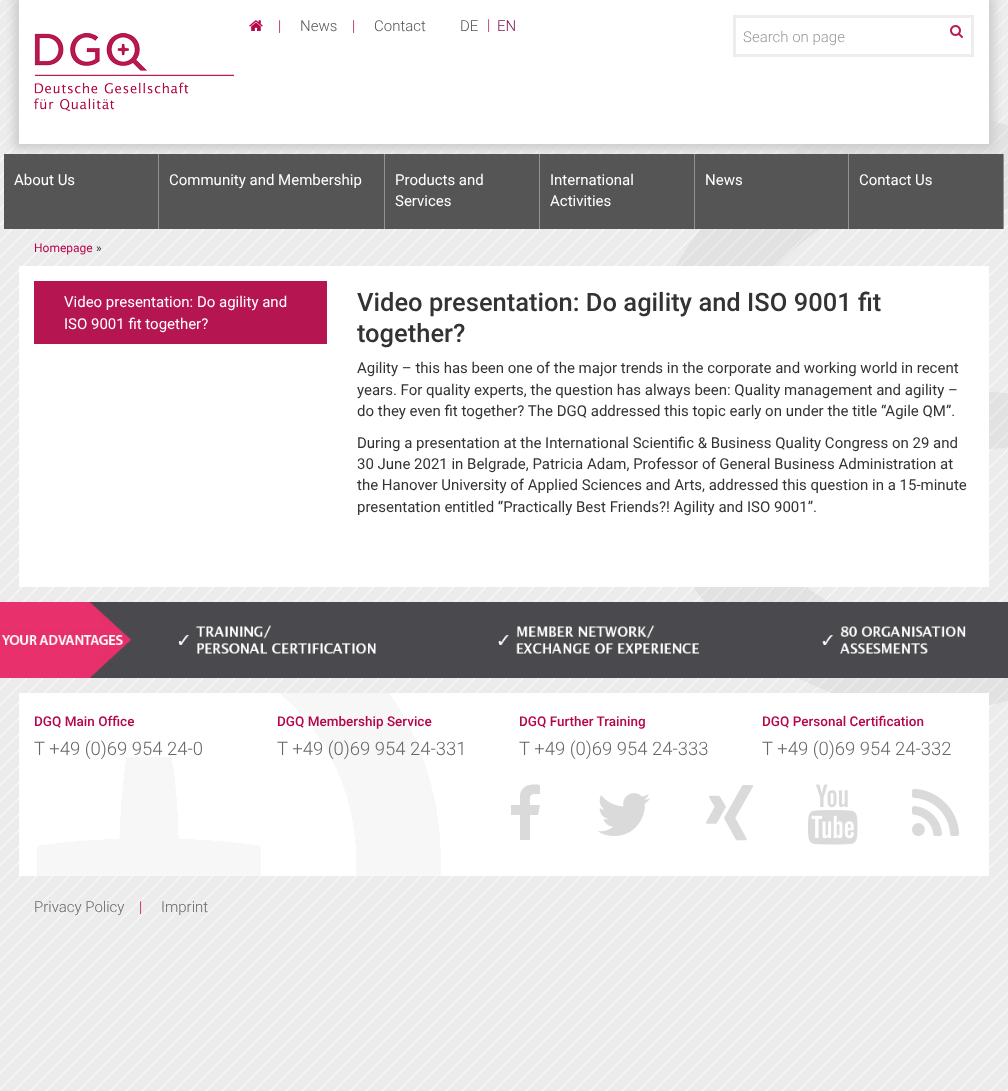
async function draw(canvas) {
	canvas.width = 1008;
	canvas.height = 1091;
	const c = canvas.getContext('2d');
	c.miterLimit = 4;
	c.fontKerning = 'normal';
	async function loadImage(src) {
		const img = new Image();
		img.src = src;
		await img.decode();
		return img;
	}

	c.fillStyle = '#fff';
	c.fillRect(0, 0, 1008, 1091);
	c.drawImage(await loadImage('img1.png'), 0, 0, 1008, 1091);
	c.drawImage(await loadImage('img5.png'), 676, 121, 332, 584);
	c.fillStyle = '#ccc';
	c.filter = 'blur(5px)';
	c.beginPath();
	c.rect(14, -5, 980, 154);
	c.fill();
	c.filter = 'none';
	c.fillStyle = '#fff';
	c.fillRect(19, 0, 970, 144);
	c.drawImage(await loadImage('img2.png'), 249, 20, 14, 11);
	c.font = '300 15px Roboto';
	c.fillStyle = '#b5064c';
	c.fillText('|', 278, 31);
	c.fillStyle = '#555';
	c.fillText('News', 300, 31);
	c.fillStyle = '#b5064c';
	c.fillText('|', 352, 31);
	c.fillStyle = '#555';
	c.fillText('Contact', 374, 31);
	c.fillText('DE', 460, 31);
	c.fillStyle = '#b51558';
	c.fillText('|', 487, 30);
	c.fillStyle = '#7d0f4f';
	c.fillText('EN', 497, 31);
	c.drawImage(await loadImage('img3.png'), 34, 33, 200, 78);
	c.strokeStyle = '#ededed';
	c.lineWidth = 3;
	c.strokeRect(734.5, 16.5, 238, 39);
	c.fillStyle = '#999';
	c.fillText('Search on page', 743, 42);
	c.drawImage(await loadImage('img4.png'), 950, 25, 13, 13);
	c.fillStyle = '#919294';
	c.fillRect(158, 154, 1, 75);
	c.fillStyle = '#555';
	c.fillRect(4, 154, 154, 75);
	c.font = '15px Roboto';
	c.fillStyle = '#fff';
	c.fillText('About Us', 14, 185);
	c.fillStyle = '#919294';
	c.fillRect(384, 154, 1, 75);
	c.fillStyle = '#555';
	c.fillRect(159, 154, 225, 75);
	c.fillStyle = '#fff';
	c.fillText('Community and Membership', 169, 185);
	c.fillStyle = '#919294';
	c.fillRect(539, 154, 1, 75);
	c.fillStyle = '#555';
	c.fillRect(385, 154, 154, 75);
	c.fillStyle = '#fff';
	c.fillText('Products and', 395, 185);
	c.fillText('Services', 395, 206);
	c.fillStyle = '#919294';
	c.fillRect(694, 154, 1, 75);
	c.fillStyle = '#555';
	c.fillRect(540, 154, 154, 75);
	c.fillStyle = '#fff';
	c.fillText('International', 550, 185);
	c.fillText('Activities', 550, 206);
	c.fillStyle = '#919294';
	c.fillRect(848, 154, 1, 75);
	c.fillStyle = '#555';
	c.fillRect(695, 154, 153, 75);
	c.fillStyle = '#fff';
	c.fillText('News', 705, 185);
	c.fillStyle = '#919294';
	c.fillRect(1003, 154, 1, 75);
	c.fillStyle = '#555';
	c.fillRect(849, 154, 154, 75);
	c.fillStyle = '#fff';
	c.fillText('Contact Us', 859, 185);
	c.font = '12px Roboto';
	c.fillStyle = '#b5064c';
	c.fillText('Homepage', 34, 252);
	c.fillStyle = '#333';
	c.fillText('»', 96, 252);
	c.fillStyle = '#fff';
	c.fillRect(19, 266, 970, 321);
	c.fillStyle = '#b51551';
	c.fillRect(34, 281, 293, 63);
	c.font = '15px Roboto';
	c.fillStyle = '#fff';
	c.fillText('Video presentation: Do agility and', 64, 307);
	c.fillText('ISO 9001 fit together?', 64, 329);
	c.font = '500 25.5px Roboto';
	c.fillStyle = '#333';
	c.fillText('Video presentation: Do agility and ISO 9001 fit', 357, 311);
	c.fillText('together?', 357, 342);
	c.font = '15px Roboto';
	for (const [text, x, y] of [
		['Agility – this has been one of the major trends in the corporate and working world in recent', 357, 373],
		['years. For quality experts, the question has always been: Quality management and agility –', 357, 395],
		['do they even fit together? The DGQ addressed this topic early on under the title “Agile QM”.', 357, 416],
		['During a presentation at the International Scientific & Business Quality Congress on 29 and', 357, 448],
		['30 June 2021 in Belgrade, Patricia Adam, Professor of General Business Administration at', 357, 469],
		['the Hanover University of Applied Sciences and Arts, addressed this question in a 15-minute', 357, 490],
		['presentation entitled “Practically Best Friends?! Agility and ISO 9001”.', 357, 512],
	]) {
		c.fillText(text, x, y);
	}
	c.drawImage(await loadImage('img6.png'), 0, 602, 1008, 76);
	c.fillStyle = '#fff';
	c.fillRect(19, 693, 970, 183);
	c.drawImage(await loadImage('img7.png'), 37, 693, 404, 183);
	c.font = '500 13.5px Roboto';
	c.fillStyle = '#b5064c';
	c.fillText('DGQ Main Office', 34, 726);
	c.font = '300 18.5px Roboto';
	c.fillStyle = '#666';
	c.fillText('T +49 (0)69 954 24-0', 34, 755);
	c.font = '500 13.5px Roboto';
	c.fillStyle = '#b5064c';
	c.fillText('DGQ Membership Service', 277, 726);
	c.font = '300 18.5px Roboto';
	c.fillStyle = '#666';
	c.fillText('T +49 (0)69 954 24-331', 277, 755);
	c.font = '500 13.5px Roboto';
	c.fillStyle = '#b5064c';
	c.fillText('DGQ Further Training', 519, 726);
	c.font = '300 18.5px Roboto';
	c.fillStyle = '#666';
	c.fillText('T +49 (0)69 954 24-333', 519, 755);
	c.font = '500 13.5px Roboto';
	c.fillStyle = '#b5064c';
	c.fillText('DGQ Personal Certification', 762, 726);
	c.font = '300 18.5px Roboto';
	c.fillStyle = '#666';
	c.fillText('T +49 (0)69 954 24-332', 762, 755);
	c.fillStyle = '#dadada';
	c.beginPath();
	c.moveTo(511, 815);
	c.lineTo(511, 805);
	c.lineTo(520, 805);
	c.lineTo(520, 795);
	c.bezierCurveTo(522, 784, 532, 784, 540, 785);
	c.lineTo(540, 794);
	c.bezierCurveTo(529, 794, 530, 794, 530, 805);
	c.lineTo(540, 805);
	c.lineTo(538, 815);
	c.lineTo(530, 815);
	c.lineTo(530, 840);
	c.lineTo(520, 840);
	c.lineTo(520, 815);
	c.closePath();
	c.fill();
	c.drawImage(await loadImage('img8.png'), 598, 793, 52, 43);
	c.drawImage(await loadImage('img9.png'), 706, 785, 47, 56);
	c.drawImage(await loadImage('img10.png'), 808, 784, 50, 61);
	c.drawImage(await loadImage('img11.png'), 912, 788, 48, 48);
	c.font = '300 15px Roboto';
	c.fillStyle = '#666';
	c.fillText('Privacy Policy', 34, 912);
	c.fillStyle = '#b5064c';
	c.fillText('|', 139, 912);
	c.fillStyle = '#666';
	c.fillText('Imprint', 161, 912);
}

draw(document.querySelector('canvas'));
